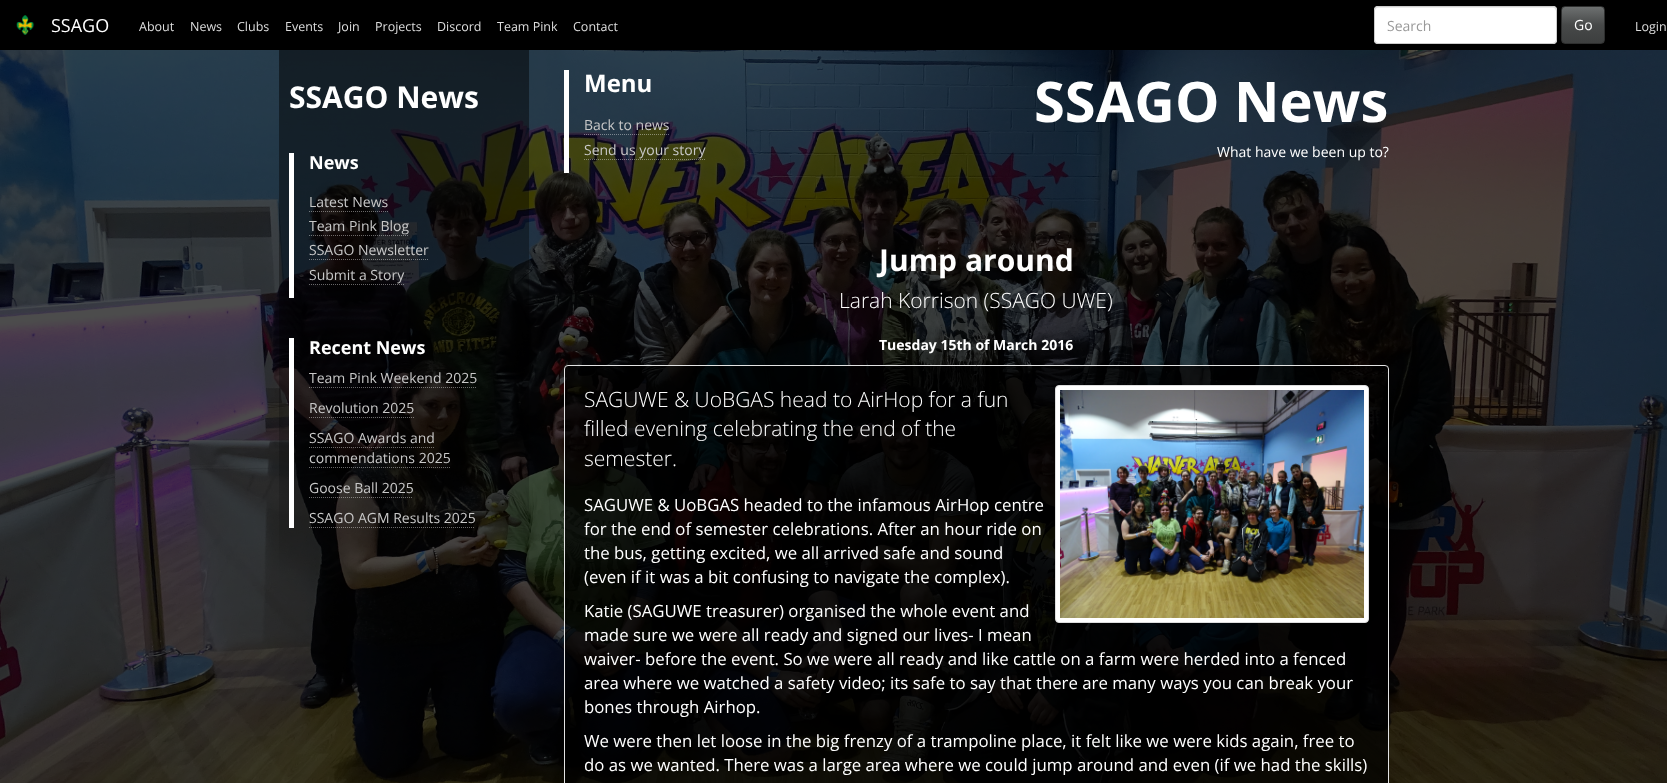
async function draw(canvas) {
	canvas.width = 1667;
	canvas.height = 783;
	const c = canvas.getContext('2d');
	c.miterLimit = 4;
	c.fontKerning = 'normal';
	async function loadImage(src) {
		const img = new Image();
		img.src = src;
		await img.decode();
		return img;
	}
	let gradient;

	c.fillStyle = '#fff';
	c.fillRect(0, 0, 1667, 783);
	c.fillStyle = '#000';
	c.fillRect(0, 0, 1667, 50);
	c.drawImage(await loadImage('img1.png'), 16, 15, 19, 20);
	c.font = '18px Open Sans';
	c.fillStyle = '#fff';
	c.fillText('SSAGO', 51, 32);
	c.font = '12.5px Open Sans';
	c.fillStyle = '#ddd';
	for (const [text, x, y] of [
		['About', 139, 31],
		['News', 190, 31],
		['Clubs', 237, 31],
		['Events', 285, 31],
		['Join', 338, 31],
		['Projects', 375, 31],
		['Discord', 437, 31],
		['Team Pink', 497, 31],
		['Contact', 573, 31],
	]) {
		c.fillText(text, x, y);
	}
	c.fillStyle = '#fff';
	c.beginPath();
	c.roundRect(1374, 6, 183, 38, 4);
	c.fill();
	c.fillStyle = '#ececec';
	c.beginPath();
	c.moveTo(1378, 8);
	c.lineTo(1554, 8);
	c.lineTo(1555, 9);
	c.lineTo(1556, 11);
	c.lineTo(1556, 10);
	c.bezierCurveTo(1556, 8, 1555, 7, 1553, 7);
	c.lineTo(1378, 7);
	c.bezierCurveTo(1376, 7, 1375, 8, 1375, 10);
	c.lineTo(1375, 11);
	c.bezierCurveTo(1375, 9, 1376, 8, 1378, 8);
	c.closePath();
	c.fill();
	c.beginPath();
	c.roundRect(1374.5, 6.5, 182, 37, 3.5);
	c.strokeStyle = '#ccc';
	c.stroke();
	c.font = '14px Open Sans';
	c.fillStyle = '#999';
	c.fillText('Search', 1387, 31);
	c.save();
	c.beginPath();
	c.roundRect(1561, 6, 44, 38, 4);
	c.clip();
	gradient = c.createLinearGradient(1583, 7, 1583, 43);
	gradient.addColorStop(0, '#6d7070');
	gradient.addColorStop(0.5, '#474949');
	gradient.addColorStop(1, '#3d3f3f');
	c.fillStyle = gradient;
	c.fillRect(1562, 7, 42, 36);
	c.restore();
	c.beginPath();
	c.roundRect(1561.5, 6.5, 43, 37, 3.5);
	c.strokeStyle = '#2e2f2f';
	c.stroke();
	c.fillStyle = '#fff';
	c.fillText('Go', 1574, 30);
	c.font = '12.5px Open Sans';
	c.fillStyle = '#ddd';
	c.fillText('Login', 1635, 31);
	c.drawImage(await loadImage('img2.png'), 0, 50, 1667, 733);
	c.font = 'bold 30px Open Sans';
	c.fillStyle = '#fff';
	c.fillText('SSAGO News', 289, 108);
	c.fillRect(289, 153, 5, 145);
	c.font = 'bold 18px Open Sans';
	c.fillText('News', 309, 169);
	c.font = '14px Open Sans';
	c.fillStyle = '#c8c8c8';
	c.fillText('Latest News', 309, 207);
	c.beginPath();
	c.moveTo(309, 211.5);
	c.lineTo(388, 211.5);
	c.strokeStyle = '#ffffff66';
	c.setLineDash([1, 1]);
	c.stroke();
	c.fillText('Team Pink Blog', 309, 231);
	c.beginPath();
	c.moveTo(309, 235.5);
	c.lineTo(409, 235.5);
	c.stroke();
	c.fillText('SSAGO Newsletter', 309, 255);
	c.beginPath();
	c.moveTo(309, 259.5);
	c.lineTo(428, 259.5);
	c.stroke();
	c.fillText('Submit a Story', 309, 280);
	c.beginPath();
	c.moveTo(309, 284.5);
	c.lineTo(404, 284.5);
	c.stroke();
	c.fillStyle = '#fff';
	c.fillRect(289, 338, 5, 190);
	c.font = 'bold 18px Open Sans';
	c.fillText('Recent News', 309, 354);
	c.font = '14px Open Sans';
	c.fillStyle = '#c8c8c8';
	c.fillText('Team Pink Weekend 2025', 309, 383);
	c.beginPath();
	c.moveTo(309, 387.5);
	c.lineTo(477, 387.5);
	c.stroke();
	c.fillText('Revolution 2025', 309, 413);
	c.beginPath();
	c.moveTo(309, 417.5);
	c.lineTo(414, 417.5);
	c.stroke();
	c.fillText('SSAGO Awards and', 309, 443);
	c.beginPath();
	c.moveTo(309, 447.5);
	c.lineTo(434, 447.5);
	c.stroke();
	c.fillText('commendations 2025', 309, 463);
	c.beginPath();
	c.moveTo(309, 467.5);
	c.lineTo(450, 467.5);
	c.stroke();
	c.fillText('Goose Ball 2025', 309, 493);
	c.beginPath();
	c.moveTo(309, 497.5);
	c.lineTo(413, 497.5);
	c.stroke();
	c.fillText('SSAGO AGM Results 2025', 309, 523);
	c.beginPath();
	c.moveTo(309, 527.5);
	c.lineTo(475, 527.5);
	c.stroke();
	c.fillStyle = '#fff';
	c.fillRect(564, 70, 5, 103);
	c.font = 'bold 24px Open Sans';
	c.fillText('Menu', 584, 92);
	c.font = '14px Open Sans';
	c.fillStyle = '#c8c8c8';
	c.fillText('Back to news', 584, 130);
	c.beginPath();
	c.moveTo(584, 134.5);
	c.lineTo(669, 134.5);
	c.stroke();
	c.fillText('Send us your story', 584, 155);
	c.beginPath();
	c.moveTo(584, 159.5);
	c.lineTo(705, 159.5);
	c.stroke();
	c.font = 'bold 56px Open Sans';
	c.fillStyle = '#fff';
	c.fillText('SSAGO News', 1034, 122);
	c.font = '14px Open Sans';
	c.fillText('What have we been up to?', 1217, 157);
	c.font = 'bold 30px Open Sans';
	c.fillText('Jump around', 879, 271);
	c.font = '300 21px Open Sans';
	c.fillText('Larah Korrison (SSAGO UWE)', 839, 308);
	c.font = 'bold 14px Open Sans';
	c.fillText('Tuesday 15th of March 2016', 879, 350);
	c.fillStyle = '#000000b3';
	c.beginPath();
	c.roundRect(564.5, 365.5, 824, 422, 3.5);
	c.fill();
	c.strokeStyle = '#e3e3e3';
	c.setLineDash([]);
	c.stroke();
	c.font = '300 21px Open Sans';
	c.fillStyle = '#fff';
	for (const [text, x, y] of [
		['SAGUWE & UoBGAS head to AirHop for a fun', 584, 407],
		['filled evening celebrating the end of the', 584, 436],
		['semester.', 584, 466],
	]) {
		c.fillText(text, x, y);
	}
	c.beginPath();
	c.roundRect(1055.5, 385.5, 313, 237, 3.5);
	c.fill();
	c.strokeStyle = '#ddd';
	c.stroke();
	c.drawImage(await loadImage('img3.png'), 1060, 390, 304, 228);
	c.font = '16.8px Open Sans';
	for (const [text, x, y] of [
		['SAGUWE & UoBGAS headed to the infamous AirHop centre', 584, 511],
		['for the end of semester celebrations. After an hour ride on', 584, 535],
		['the bus, getting excited, we all arrived safe and sound', 584, 559],
		['(even if it was a bit confusing to navigate the complex).', 584, 583],
		['Katie (SAGUWE treasurer) organised the whole event and', 584, 617],
		['made sure we were all ready and signed our lives- I mean', 584, 641],
		['waiver- before the event. So we were all ready and like cattle on a farm were herded into a fenced', 584, 665],
		['area where we watched a safety video; its safe to say that there are many ways you can break your', 584, 689],
		['bones through Airhop.', 584, 713],
		['We were then let loose in the big frenzy of a trampoline place, it felt like we were kids again, free to', 584, 747],
		['do as we wanted. There was a large area where we could jump around and even (if we had the skills)', 584, 771],
	]) {
		c.fillText(text, x, y);
	}
}

draw(document.querySelector('canvas'));
